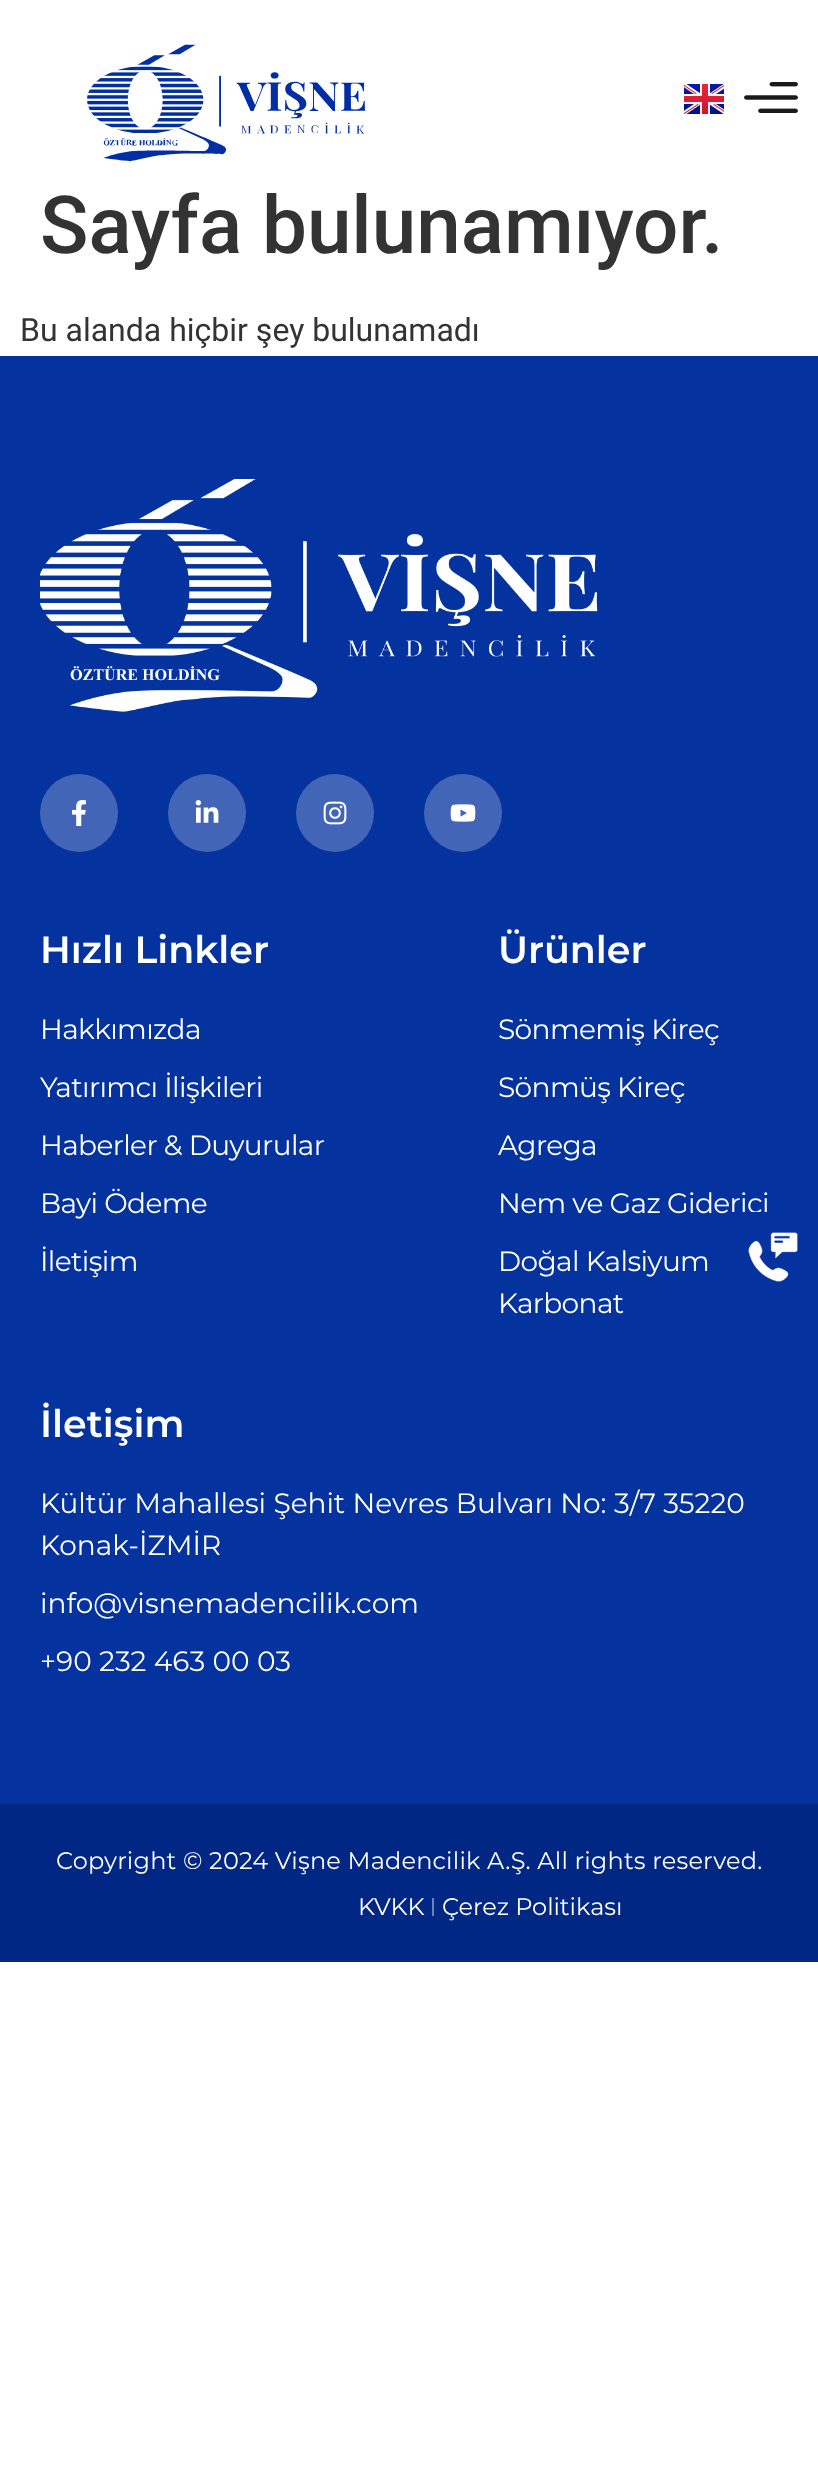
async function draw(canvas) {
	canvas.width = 818;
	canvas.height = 2474;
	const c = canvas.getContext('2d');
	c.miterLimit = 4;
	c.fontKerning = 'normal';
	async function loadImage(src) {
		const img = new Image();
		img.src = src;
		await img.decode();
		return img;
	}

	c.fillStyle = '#fff';
	c.fillRect(0, 0, 818, 2474);
	c.drawImage(await loadImage('img1.png'), 87, 44, 279, 118);
	c.drawImage(await loadImage('img2.png'), 684, 84, 40, 30);
	c.drawImage(await loadImage('img3.png'), 744, 82, 54, 31);
	c.font = '500 80px Roboto';
	c.fillStyle = '#333';
	c.fillText('Sayfa bulunamıyor.', 40, 253);
	c.font = '32px Roboto';
	c.fillText('Bu alanda hiçbir şey bulunamadı', 20, 341);
	c.fillStyle = '#04329f';
	c.fillRect(0, 356, 818, 1448);
	c.drawImage(await loadImage('img4.png'), 40, 479, 558, 233);
	c.fillStyle = '#4265b7';
	c.beginPath();
	c.arc(79, 813, 39, 0, 2 * Math.PI);
	c.fill();
	c.drawImage(await loadImage('img5.png'), 72, 800, 14, 26);
	c.beginPath();
	c.arc(207, 813, 39, 0, 2 * Math.PI);
	c.fill();
	c.drawImage(await loadImage('img6.png'), 195, 800, 24, 23);
	c.beginPath();
	c.arc(335, 813, 39, 0, 2 * Math.PI);
	c.fill();
	c.drawImage(await loadImage('img7.png'), 323, 801, 24, 24);
	c.beginPath();
	c.arc(463, 813, 39, 0, 2 * Math.PI);
	c.fill();
	c.drawImage(await loadImage('img8.png'), 450, 804, 26, 18);
	c.letterSpacing = '-0.6px';
	c.font = '28px Montserrat';
	c.fillStyle = '#fff';
	c.fillText('Nem ve Gaz Giderici', 498, 1213);
	c.fillStyle = '#03319f';
	c.fillRect(732, 1212, 35, 2);
	c.drawImage(await loadImage('img9.png'), 748, 1232, 50, 50);
	c.letterSpacing = '0px';
	c.font = '600 38px Montserrat';
	c.fillStyle = '#fff';
	c.fillText('Hızlı Linkler', 40, 963);
	c.letterSpacing = '-0.6px';
	c.font = '28px Montserrat';
	for (const [text, x, y] of [
		['Hakkımızda', 40, 1039],
		['Yatırımcı İlişkileri', 40, 1097],
		['Haberler & Duyurular', 40, 1155],
		['Bayi Ödeme', 40, 1213],
		['İletişim', 40, 1271],
	]) {
		c.fillText(text, x, y);
	}
	c.letterSpacing = '0px';
	c.font = '600 38px Montserrat';
	c.fillText('Ürünler', 498, 963);
	c.letterSpacing = '-0.6px';
	c.font = '28px Montserrat';
	for (const [text, x, y] of [
		['Sönmemiş Kireç', 498, 1039],
		['Sönmüş Kireç', 498, 1097],
		['Agrega', 498, 1155],
		['Doğal Kalsiyum', 498, 1271],
		['Karbonat', 498, 1313],
	]) {
		c.fillText(text, x, y);
	}
	c.letterSpacing = '0px';
	c.font = '600 38px Montserrat';
	c.fillText('İletişim', 40, 1437);
	c.font = '28px Montserrat';
	for (const [text, x, y] of [
		['Kültür Mahallesi Şehit Nevres Bulvarı No: 3/7 35220', 40, 1513],
		['Konak-İZMİR', 40, 1555],
		['info@visnemadencilik.com', 40, 1613],
		['+90 232 463 00 03', 40, 1671],
	]) {
		c.fillText(text, x, y);
	}
	c.fillStyle = '#002784';
	c.fillRect(0, 1804, 818, 158);
	c.letterSpacing = '0.2px';
	c.font = '24px Montserrat';
	c.fillStyle = '#fff';
	c.fillText('Copyright © 2024 Vişne Madencilik A.Ş. All rights reserved.', 56, 1869);
	c.letterSpacing = '0px';
	c.fillText('KVKK', 358, 1915);
	c.fillStyle = '#6b82b8';
	c.fillRect(432, 1898, 2, 18);
	c.fillStyle = '#fff';
	c.fillText('Çerez Politikası', 442, 1915);
}

draw(document.querySelector('canvas'));
